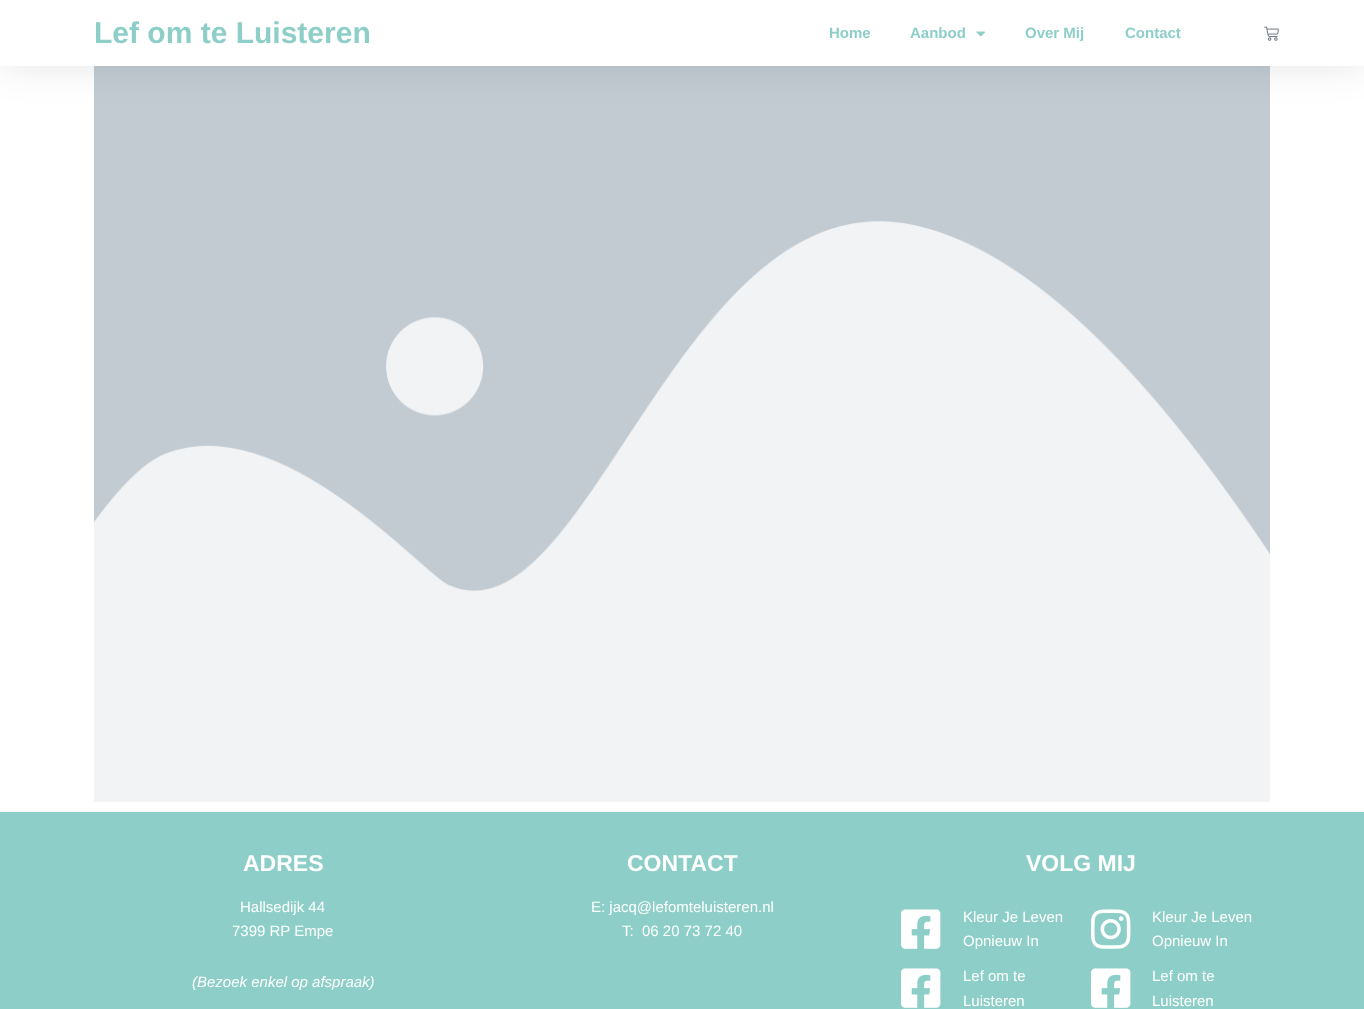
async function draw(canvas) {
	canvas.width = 1364;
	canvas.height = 1009;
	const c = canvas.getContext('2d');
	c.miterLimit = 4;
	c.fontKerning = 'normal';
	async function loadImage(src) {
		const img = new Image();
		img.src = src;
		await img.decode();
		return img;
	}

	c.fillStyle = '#fff';
	c.fillRect(0, 0, 1364, 1009);
	c.drawImage(await loadImage('img3.png'), 94, 66, 1176, 736);
	c.fillStyle = '#0000001a';
	c.filter = 'blur(19px)';
	c.beginPath();
	c.rect(0, 0, 1364, 66);
	c.fill();
	c.filter = 'none';
	c.fillStyle = '#fff';
	c.fillRect(0, 0, 1364, 66);
	c.font = 'bold 30px Liberation Sans';
	c.fillStyle = '#8dcfc8';
	c.fillText('Lef om te Luisteren', 94, 43);
	c.font = 'bold 15px Liberation Sans';
	c.fillText('Home', 829, 38);
	c.fillText('Aanbod', 910, 38);
	c.drawImage(await loadImage('img1.png'), 976, 31, 9, 6);
	c.fillText('Over Mij', 1025, 38);
	c.fillText('Contact', 1125, 38);
	c.drawImage(await loadImage('img2.png'), 1264, 26, 15, 15);
	c.fillRect(0, 812, 1364, 197);
	c.font = 'bold 23px Liberation Sans';
	c.fillStyle = '#fff';
	c.fillText('ADRES', 243, 871);
	c.font = '15px Arimo';
	c.fillText('Hallsedijk 44', 240, 912);
	c.fillText('7399 RP Empe', 232, 936);
	c.font = 'italic 15px Liberation Sans';
	c.fillText('(Bezoek enkel op afspraak)', 192, 987);
	c.font = 'bold 23px Liberation Sans';
	c.fillText('CONTACT', 627, 871);
	c.font = '15px Arimo';
	c.fillText('E: jacq@lefomteluisteren.nl', 591, 912);
	c.fillText('T:  06 20 73 72 40', 622, 936);
	c.font = 'bold 23px Liberation Sans';
	c.fillText('VOLG MIJ', 1026, 871);
	c.drawImage(await loadImage('img4.png'), 901, 909, 40, 40);
	c.font = '15px Arimo';
	c.fillText('Kleur Je Leven', 963, 922);
	c.fillText('Opnieuw In', 963, 946);
	c.drawImage(await loadImage('img4.png'), 901, 968, 40, 40);
	c.fillText('Lef om te', 963, 981);
	c.fillText('Luisteren', 963, 1006);
	c.drawImage(await loadImage('img5.png'), 1091, 909, 40, 40);
	c.fillText('Kleur Je Leven', 1152, 922);
	c.fillText('Opnieuw In', 1152, 946);
	c.drawImage(await loadImage('img4.png'), 1091, 968, 40, 40);
	c.fillText('Lef om te', 1152, 981);
	c.fillText('Luisteren', 1152, 1006);
}

draw(document.querySelector('canvas'));
